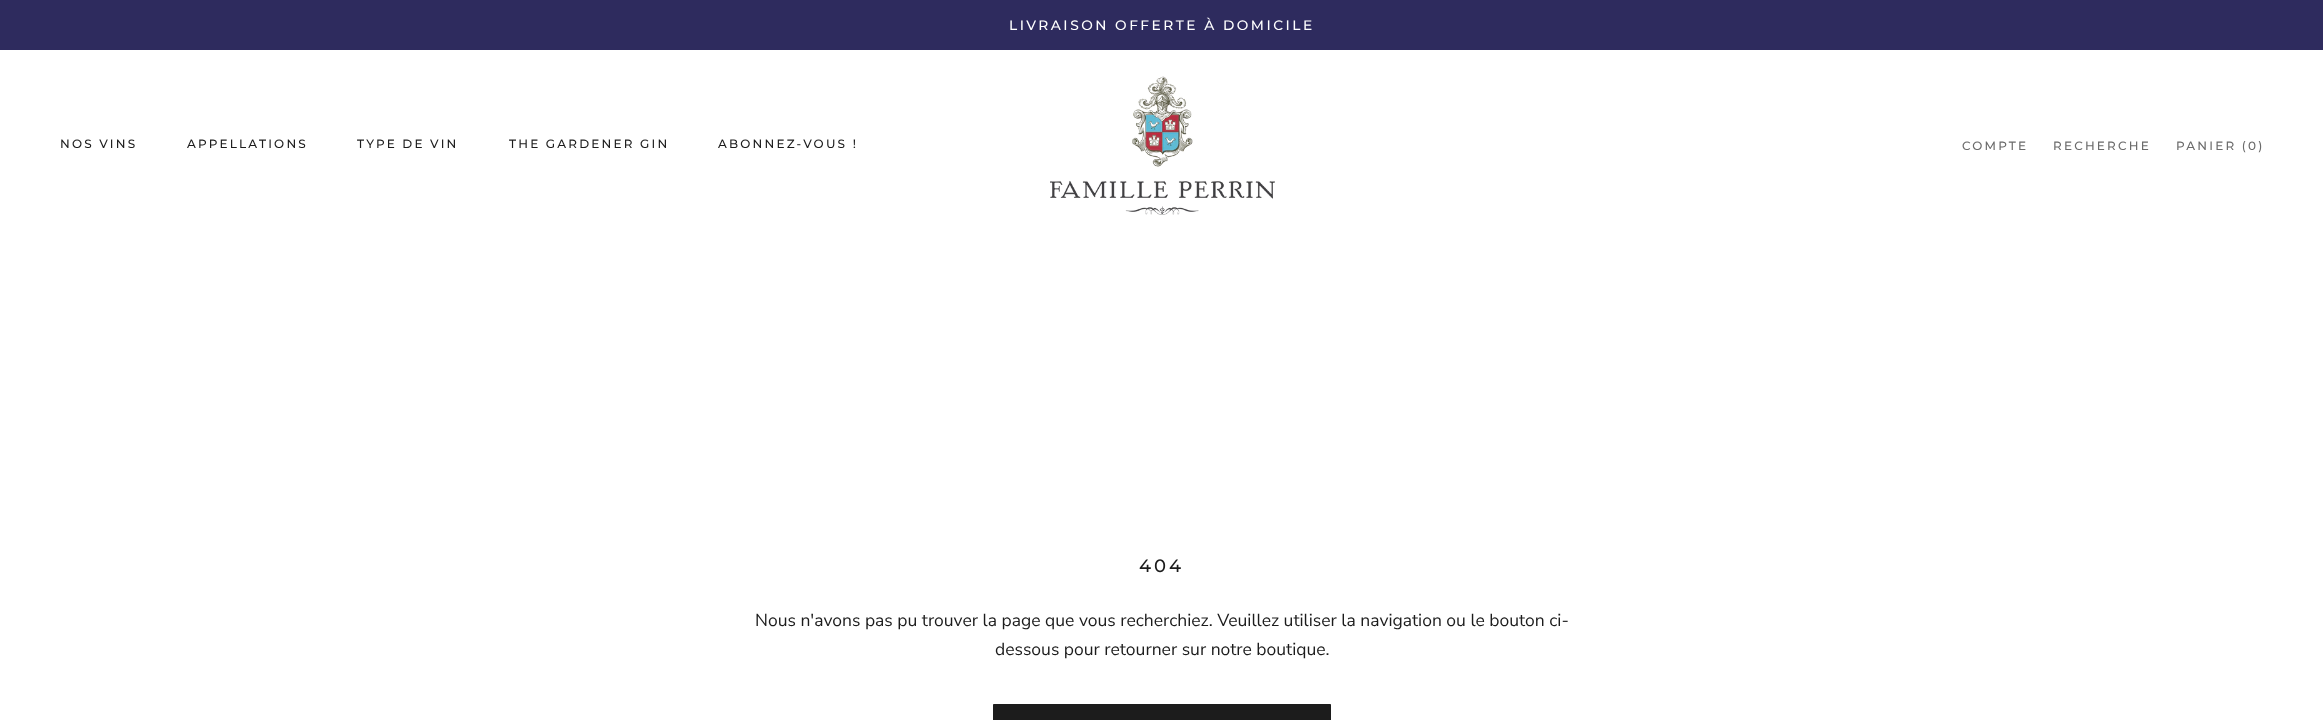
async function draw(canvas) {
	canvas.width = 2323;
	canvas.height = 720;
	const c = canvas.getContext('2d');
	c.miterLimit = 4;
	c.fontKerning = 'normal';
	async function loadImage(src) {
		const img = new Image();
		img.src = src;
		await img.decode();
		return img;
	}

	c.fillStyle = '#fff';
	c.fillRect(0, 0, 2323, 720);
	c.fillStyle = '#2e2b5e';
	c.fillRect(0, 0, 2323, 50);
	c.letterSpacing = '2.5px';
	c.font = '500 13.75px Montserrat';
	c.fillStyle = '#fff';
	c.fillText('LIVRAISON OFFERTE À DOMICILE', 1009, 30);
	c.letterSpacing = '2.2px';
	c.font = '500 12px Montserrat';
	c.fillStyle = '#1c1c1c';
	for (const [text, x, y] of [
		['NOS VINS', 60, 148],
		['APPELLATIONS', 187, 148],
		['TYPE DE VIN', 357, 148],
		['THE GARDENER GIN', 509, 148],
		['ABONNEZ-VOUS !', 718, 148],
	]) {
		c.fillText(text, x, y);
	}
	c.drawImage(await loadImage('img1.png'), 1050, 76, 225, 139);
	c.fillStyle = '#6b6b6b';
	for (const [text, x, y] of [
		['COMPTE', 1962, 150],
		['RECHERCHE', 2053, 150],
		['PANIER (0)', 2176, 150],
	]) {
		c.fillText(text, x, y);
	}
	c.letterSpacing = '3px';
	c.font = '500 18px Montserrat';
	c.fillStyle = '#1c1c1c';
	c.fillText('404', 1139, 572);
	c.letterSpacing = '0px';
	c.font = '200 17.5px Nunito Sans';
	c.fillText('Nous n\'avons pas pu trouver la page que vous recherchiez. Veuillez utiliser la navigation ou le bouton ci-', 755, 626);
	c.fillText('dessous pour retourner sur notre boutique.', 995, 655);
	c.beginPath();
	c.rect(993.5, 704.5, 337, 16);
	c.fill();
	c.strokeStyle = '#1c1c1c';
	c.stroke();
}

draw(document.querySelector('canvas'));
